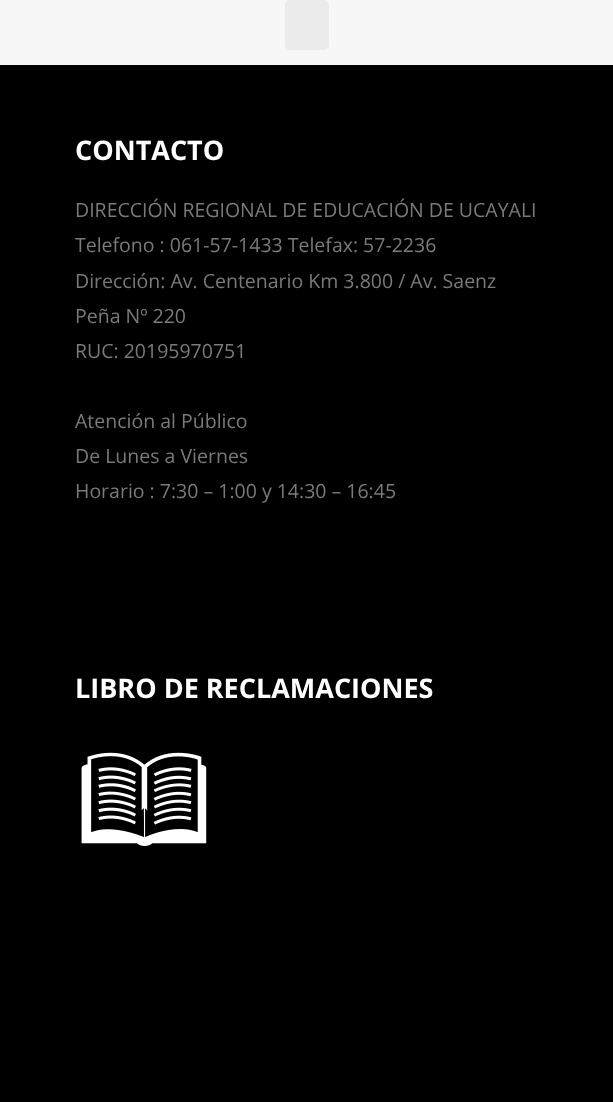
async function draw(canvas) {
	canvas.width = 613;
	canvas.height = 1102;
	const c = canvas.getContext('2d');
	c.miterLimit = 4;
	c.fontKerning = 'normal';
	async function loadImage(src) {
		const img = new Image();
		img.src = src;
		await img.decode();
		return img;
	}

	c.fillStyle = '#000';
	c.fillRect(0, 0, 613, 1102);
	c.fillStyle = '#f7f7f7';
	c.fillRect(0, 0, 613, 65);
	c.fillStyle = '#ebebeb';
	c.beginPath();
	c.roundRect(285, 0, 44, 50, 5);
	c.fill();
	c.font = 'bold 27px Open Sans';
	c.fillStyle = '#fff';
	c.fillText('CONTACTO', 75, 160);
	c.font = '19.5px Open Sans';
	c.fillStyle = '#7a7a7a';
	for (const [text, x, y] of [
		['DIRECCIÓN REGIONAL DE EDUCACIÓN DE UCAYALI', 75, 217],
		['Telefono : 061-57-1433 Telefax: 57-2236', 75, 252],
		['Dirección: Av. Centenario Km 3.800 / Av. Saenz', 75, 288],
		['Peña Nº 220', 75, 323],
		['RUC: 20195970751', 75, 358],
		['Atención al Público', 75, 428],
		['De Lunes a Viernes', 75, 463],
		['Horario : 7:30 – 1:00 y 14:30 – 16:45', 75, 498],
	]) {
		c.fillText(text, x, y);
	}
	c.font = 'bold 27px Open Sans';
	c.fillStyle = '#fff';
	c.fillText('LIBRO DE RECLAMACIONES', 75, 698);
	c.drawImage(await loadImage('img1.png'), 81, 752, 126, 94);
}

draw(document.querySelector('canvas'));
